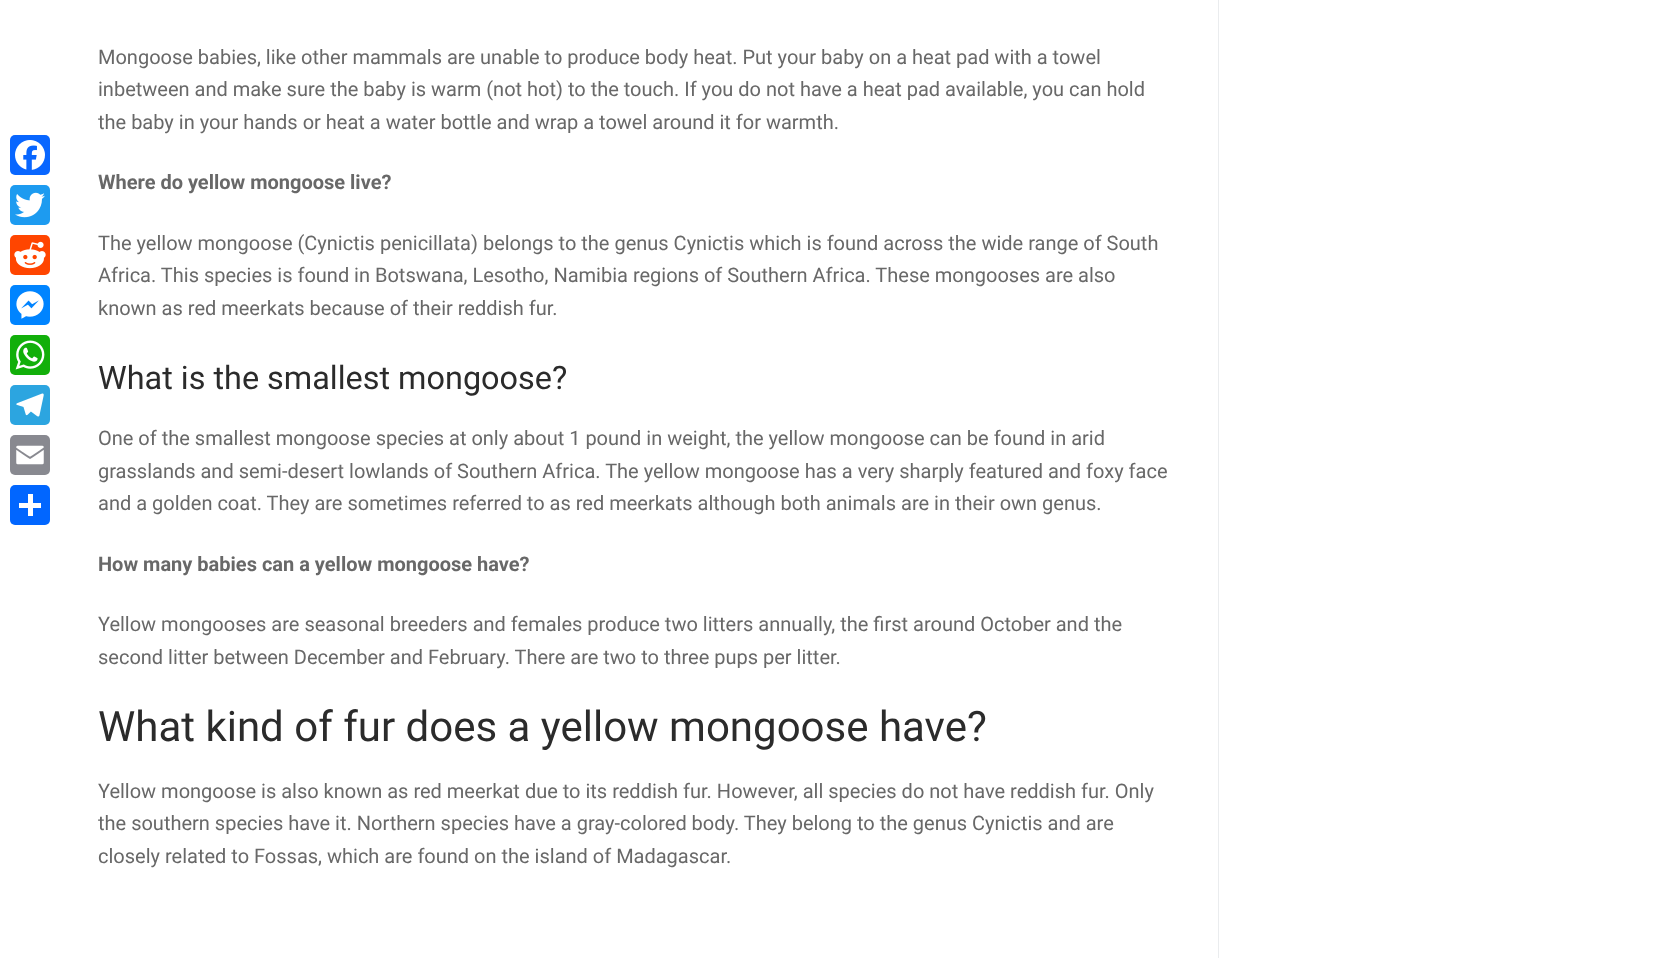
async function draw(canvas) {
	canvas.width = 1676;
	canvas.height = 958;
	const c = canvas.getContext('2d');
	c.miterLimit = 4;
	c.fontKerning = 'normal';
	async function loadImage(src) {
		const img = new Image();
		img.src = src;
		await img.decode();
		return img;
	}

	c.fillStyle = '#fff';
	c.fillRect(0, 0, 1676, 958);
	c.fillStyle = '#0866ff';
	c.beginPath();
	c.roundRect(10, 135, 40, 40, 5);
	c.fill();
	c.drawImage(await loadImage('img1.png'), 15, 140, 30, 30);
	c.fillStyle = '#1d9bf0';
	c.beginPath();
	c.roundRect(10, 185, 40, 40, 5);
	c.fill();
	c.drawImage(await loadImage('img2.png'), 15, 192, 30, 26);
	c.fillStyle = '#ff4500';
	c.beginPath();
	c.roundRect(10, 235, 40, 40, 5);
	c.fill();
	c.drawImage(await loadImage('img3.png'), 14, 241, 32, 28);
	c.fillStyle = '#0084ff';
	c.beginPath();
	c.roundRect(10, 285, 40, 40, 5);
	c.fill();
	c.drawImage(await loadImage('img4.png'), 16, 291, 28, 28);
	c.fillStyle = '#12af0a';
	c.beginPath();
	c.roundRect(10, 335, 40, 40, 5);
	c.fill();
	c.drawImage(await loadImage('img5.png'), 15, 340, 30, 30);
	c.fillStyle = '#2ca5e0';
	c.beginPath();
	c.roundRect(10, 385, 40, 40, 5);
	c.fill();
	c.drawImage(await loadImage('img6.png'), 16, 393, 28, 24);
	c.fillStyle = '#888990';
	c.beginPath();
	c.roundRect(10, 435, 40, 40, 5);
	c.fill();
	c.drawImage(await loadImage('img7.png'), 16, 445, 28, 20);
	c.fillStyle = '#0166ff';
	c.beginPath();
	c.roundRect(10, 485, 40, 40, 5);
	c.fill();
	for (const [x, y, w, h, color] of [
		[28, 494, 5, 22, '#fff'],
		[19, 503, 22, 5, '#fff'],
		[1218, 0, 1, 958, '#eaecee'],
	]) {
		c.fillStyle = color;
		c.fillRect(x, y, w, h);
	}
	c.font = '20px Roboto';
	c.fillStyle = '#686868';
	for (const [text, x, y] of [
		['Mongoose babies, like other mammals are unable to produce body heat. Put your baby on a heat pad with a towel', 98, 64],
		['inbetween and make sure the baby is warm (not hot) to the touch. If you do not have a heat pad available, you can hold', 98, 96],
		['the baby in your hands or heat a water bottle and wrap a towel around it for warmth.', 98, 129],
	]) {
		c.fillText(text, x, y);
	}
	c.font = 'bold 20px Roboto';
	c.fillText('Where do yellow mongoose live?', 98, 189);
	c.font = '20px Roboto';
	for (const [text, x, y] of [
		['The yellow mongoose (Cynictis penicillata) belongs to the genus Cynictis which is found across the wide range of South', 98, 250],
		['Africa. This species is found in Botswana, Lesotho, Namibia regions of Southern Africa. These mongooses are also', 98, 282],
		['known as red meerkats because of their reddish fur.', 98, 315],
	]) {
		c.fillText(text, x, y);
	}
	c.font = '32.4px Roboto';
	c.fillStyle = '#2b2b2b';
	c.fillText('What is the smallest mongoose?', 98, 389);
	c.font = '20px Roboto';
	c.fillStyle = '#686868';
	for (const [text, x, y] of [
		['One of the smallest mongoose species at only about 1 pound in weight, the yellow mongoose can be found in arid', 98, 445],
		['grasslands and semi-desert lowlands of Southern Africa. The yellow mongoose has a very sharply featured and foxy face', 98, 478],
		['and a golden coat. They are sometimes referred to as red meerkats although both animals are in their own genus.', 98, 510],
	]) {
		c.fillText(text, x, y);
	}
	c.font = 'bold 20px Roboto';
	c.fillText('How many babies can a yellow mongoose have?', 98, 571);
	c.font = '20px Roboto';
	c.fillText('Yellow mongooses are seasonal breeders and females produce two litters annually, the first around October and the', 98, 631);
	c.fillText('second litter between December and February. There are two to three pups per litter.', 98, 664);
	c.font = '42px Roboto';
	c.fillStyle = '#2b2b2b';
	c.fillText('What kind of fur does a yellow mongoose have?', 98, 741);
	c.font = '20px Roboto';
	c.fillStyle = '#686868';
	for (const [text, x, y] of [
		['Yellow mongoose is also known as red meerkat due to its reddish fur. However, all species do not have reddish fur. Only', 98, 798],
		['the southern species have it. Northern species have a gray-colored body. They belong to the genus Cynictis and are', 98, 830],
		['closely related to Fossas, which are found on the island of Madagascar.', 98, 863],
	]) {
		c.fillText(text, x, y);
	}
}

draw(document.querySelector('canvas'));
